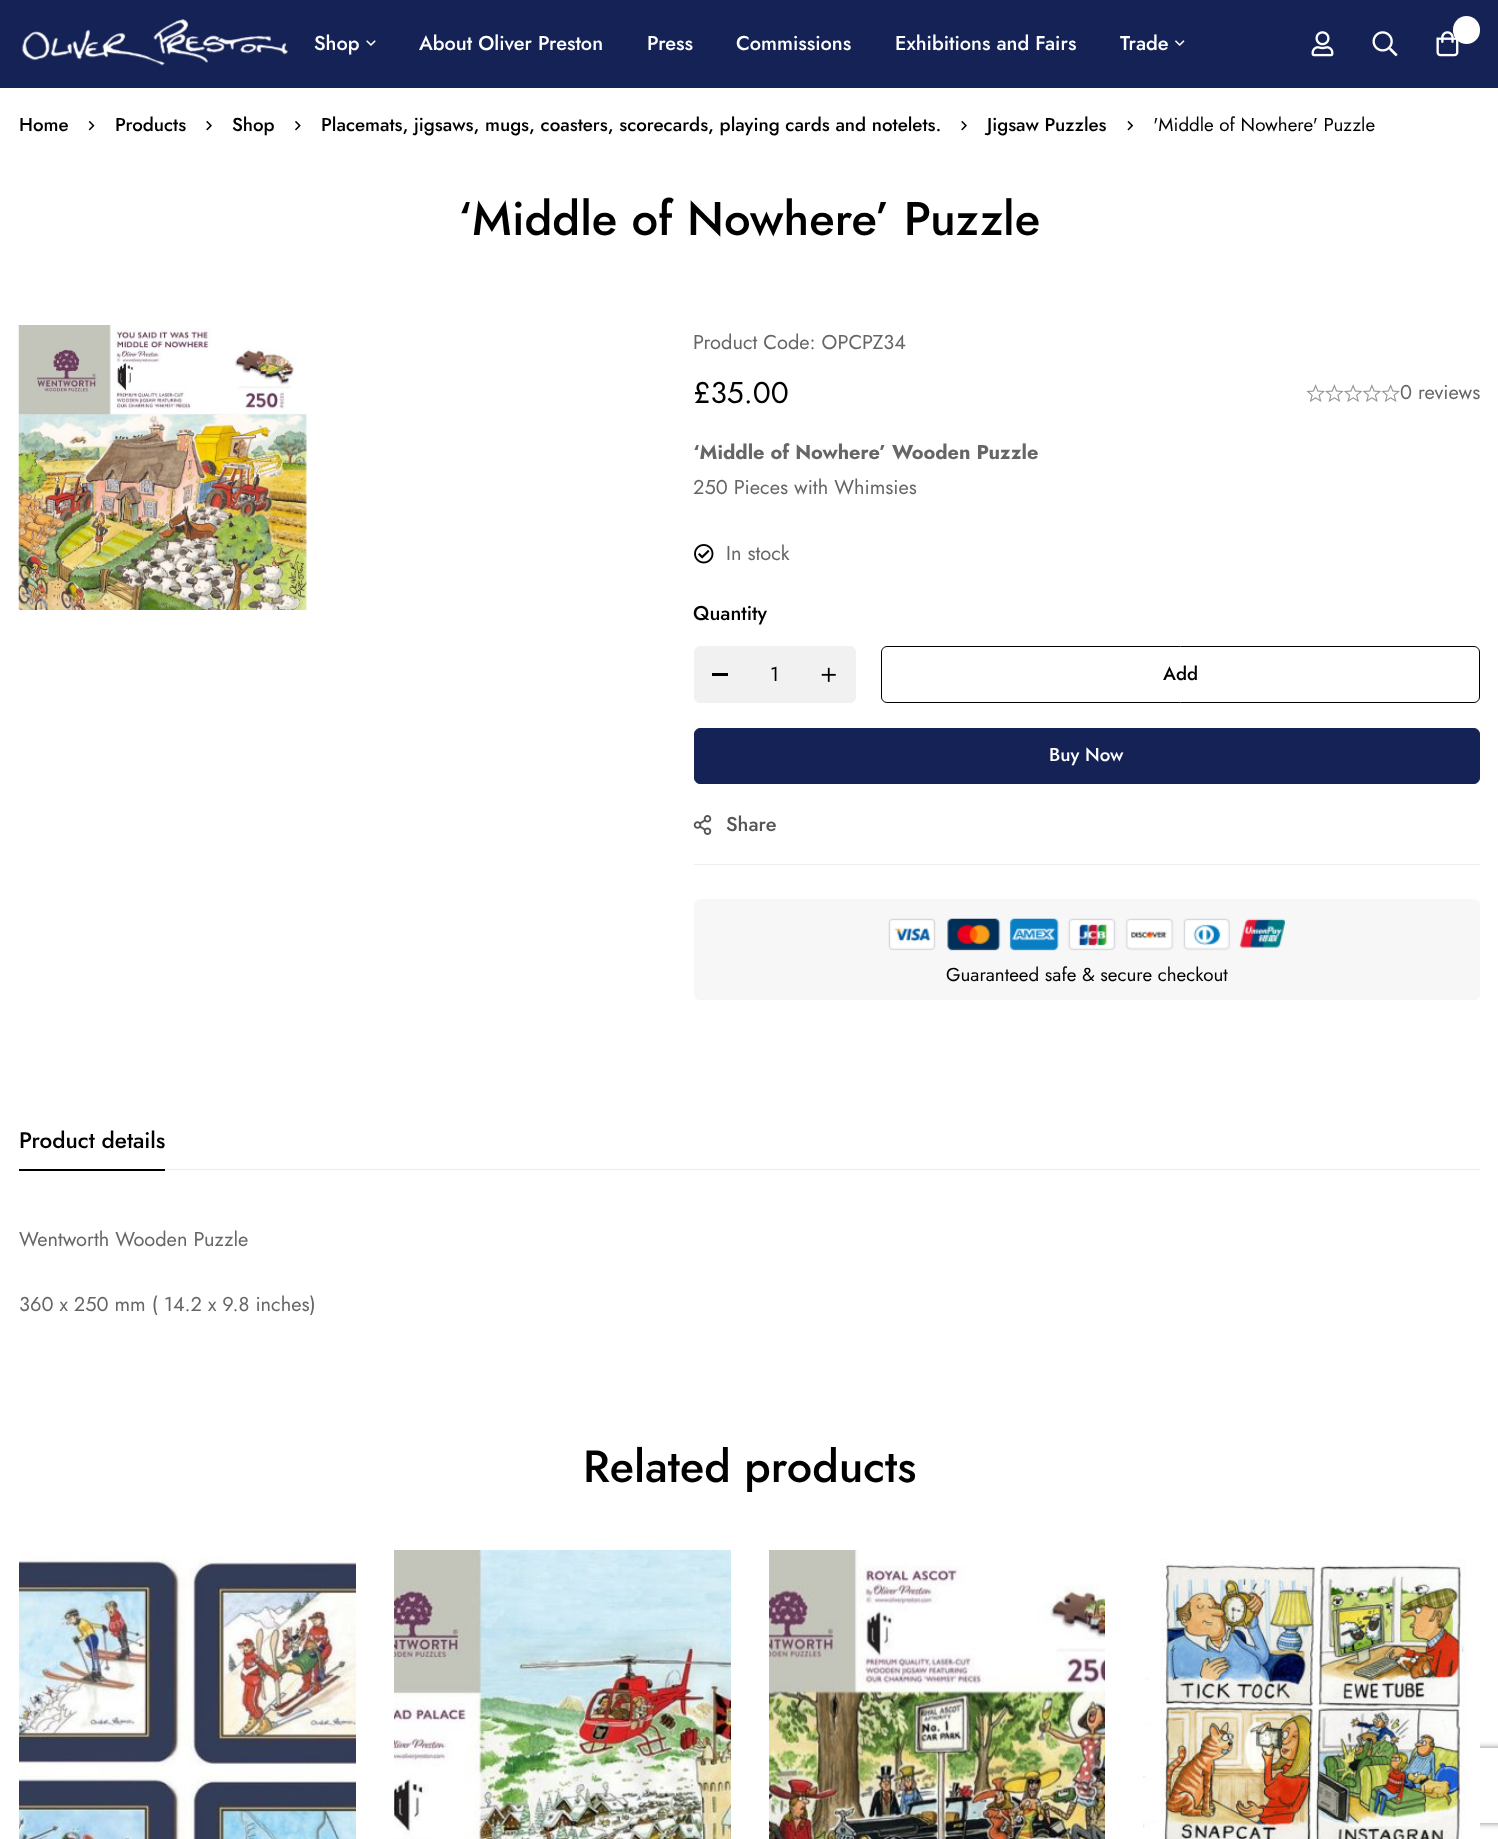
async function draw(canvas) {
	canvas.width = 1498;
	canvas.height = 1839;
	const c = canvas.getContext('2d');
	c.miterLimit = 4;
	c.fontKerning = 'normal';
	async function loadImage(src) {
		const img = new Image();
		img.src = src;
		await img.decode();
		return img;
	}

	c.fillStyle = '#fff';
	c.fillRect(0, 0, 1498, 1839);
	c.fillStyle = '#152256';
	c.fillRect(0, 0, 1498, 88);
	c.drawImage(await loadImage('img1.png'), 21, 19, 267, 47);
	c.font = '500 20px Jost';
	c.fillStyle = '#fff';
	c.fillText('Shop', 314, 50);
	c.drawImage(await loadImage('img2.png'), 366, 40, 10, 6);
	for (const [text, x, y] of [
		['About Oliver Preston', 419, 50],
		['Press', 647, 50],
		['Commissions', 736, 50],
		['Exhibitions and Fairs', 895, 50],
		['Trade', 1120, 50],
	]) {
		c.fillText(text, x, y);
	}
	c.drawImage(await loadImage('img3.png'), 1175, 40, 10, 6);
	c.drawImage(await loadImage('img4.png'), 1311, 31, 23, 26);
	c.drawImage(await loadImage('img5.png'), 1372, 31, 26, 26);
	c.drawImage(await loadImage('img6.png'), 1436, 31, 23, 26);
	c.beginPath();
	c.roundRect(1453, 16, 27, 28, 13.5);
	c.fill();
	c.font = '500 18.75px Jost';
	c.fillStyle = '#000';
	c.fillText('Home', 19, 131);
	c.drawImage(await loadImage('img7.png'), 88, 121, 7, 10);
	c.fillText('Products', 115, 131);
	c.drawImage(await loadImage('img8.png'), 206, 121, 6, 10);
	c.fillText('Shop', 232, 131);
	c.drawImage(await loadImage('img9.png'), 295, 121, 6, 10);
	c.fillText('Placemats, jigsaws, mugs, coasters, scorecards, playing cards and notelets.', 321, 131);
	c.drawImage(await loadImage('img8.png'), 961, 121, 6, 10);
	c.fillText('Jigsaw Puzzles', 987, 131);
	c.drawImage(await loadImage('img10.png'), 1127, 121, 7, 10);
	c.font = '18.75px Jost';
	c.fillText('\'Middle of Nowhere\' Puzzle', 1153, 131);
	c.font = '500 47.25px Jost';
	c.fillText('‘Middle of Nowhere’ Puzzle', 458, 235);
	c.drawImage(await loadImage('img11.png'), 18, 325, 289, 285);
	c.font = '20px Jost';
	c.fillStyle = '#666';
	c.fillText('Product Code: OPCPZ34', 693, 349);
	c.font = '30px Jost';
	c.fillStyle = '#000';
	c.fillText('£35.00', 693, 403);
	c.drawImage(await loadImage('img12.png'), 1306, 384, 19, 18);
	c.drawImage(await loadImage('img13.png'), 1325, 384, 19, 18);
	c.drawImage(await loadImage('img14.png'), 1344, 384, 19, 18);
	c.drawImage(await loadImage('img15.png'), 1363, 384, 18, 18);
	c.drawImage(await loadImage('img12.png'), 1381, 384, 19, 18);
	c.font = '20px Jost';
	c.fillStyle = '#666';
	c.fillText('0 reviews', 1400, 399);
	c.font = 'bold 20px Jost';
	c.fillText('‘Middle of Nowhere’ Wooden Puzzle', 693, 459);
	c.font = '20px Jost';
	c.fillText('250 Pieces with Whimsies', 693, 494);
	c.drawImage(await loadImage('img16.png'), 694, 544, 20, 20);
	c.fillText('In stock', 726, 560);
	c.font = '500 20px Jost';
	c.fillStyle = '#000';
	c.fillText('Quantity', 693, 620);
	c.fillStyle = '#f1f1f1';
	c.beginPath();
	c.roundRect(694.5, 646.5, 161, 56, 5.5);
	c.fill();
	c.strokeStyle = '#f1f1f1';
	c.stroke();
	c.fillStyle = '#000';
	c.fillRect(712, 673, 16, 3);
	c.font = '20px Jost';
	c.fillText('1', 770, 681);
	c.drawImage(await loadImage('img17.png'), 821, 667, 15, 15);
	c.beginPath();
	c.roundRect(881.5, 646.5, 598, 56, 5.5);
	c.strokeStyle = '#000';
	c.stroke();
	c.font = '500 18.75px Jost';
	c.fillText('Add', 1163, 680);
	c.fillStyle = '#152256';
	c.beginPath();
	c.roundRect(694.5, 728.5, 785, 55, 5.5);
	c.fill();
	c.strokeStyle = '#152256';
	c.stroke();
	c.fillStyle = '#fff';
	c.fillText('Buy Now', 1049, 761);
	c.fillStyle = '#eee';
	c.fillRect(694, 864, 786, 1);
	c.drawImage(await loadImage('img18.png'), 693, 815, 19, 20);
	c.font = '500 20px Jost';
	c.fillStyle = '#555';
	c.fillText('Share', 726, 831);
	c.fillStyle = '#f7f7f7';
	c.beginPath();
	c.roundRect(694, 899, 786, 101, 6);
	c.fill();
	c.drawImage(await loadImage('img19.png'), 888, 918, 397, 33);
	c.font = '18.75px Jost';
	c.fillStyle = '#000';
	c.fillText('Guaranteed safe & secure checkout', 946, 981);
	c.font = '500 22.5px Jost';
	c.fillText('Product details', 19, 1148);
	c.fillRect(19, 1169, 146, 2);
	c.fillStyle = '#eeeee0';
	c.fillRect(165, 1169, 1315, 1);
	c.font = '20px Jost';
	c.fillStyle = '#666';
	c.fillText('Wentworth Wooden Puzzle', 19, 1246);
	c.fillText('360 x 250 mm ( 14.2 x 9.8 inches)', 19, 1311);
	c.font = '500 45px Jost';
	c.fillStyle = '#000';
	c.fillText('Related products', 583, 1482);
	c.drawImage(await loadImage('img20.png'), 19, 1554, 337, 285);
	c.drawImage(await loadImage('img21.png'), 394, 1550, 337, 289);
	c.drawImage(await loadImage('img22.png'), 769, 1550, 336, 289);
	c.save();
	c.beginPath();
	c.moveTo(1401, 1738);
	c.lineTo(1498, 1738);
	c.lineTo(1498, 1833);
	c.lineTo(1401, 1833);
	c.closePath();
	c.moveTo(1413.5, 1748);
	c.lineTo(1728.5, 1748);
	c.bezierCurveTo(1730, 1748, 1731, 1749, 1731, 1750.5);
	c.lineTo(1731, 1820.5);
	c.bezierCurveTo(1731, 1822, 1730, 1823, 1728.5, 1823);
	c.lineTo(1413.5, 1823);
	c.bezierCurveTo(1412, 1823, 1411, 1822, 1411, 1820.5);
	c.lineTo(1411, 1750.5);
	c.bezierCurveTo(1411, 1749, 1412, 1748, 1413.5, 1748);
	c.closePath();
	c.clip('evenodd');
	c.fillStyle = '#808080';
	c.filter = 'blur(3px)';
	c.beginPath();
	c.roundRect(1411, 1748, 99, 75, 2.5);
	c.fill();
	c.filter = 'none';
	c.restore();
	c.drawImage(await loadImage('img23.png'), 1143, 1559, 337, 280);
}

draw(document.querySelector('canvas'));
